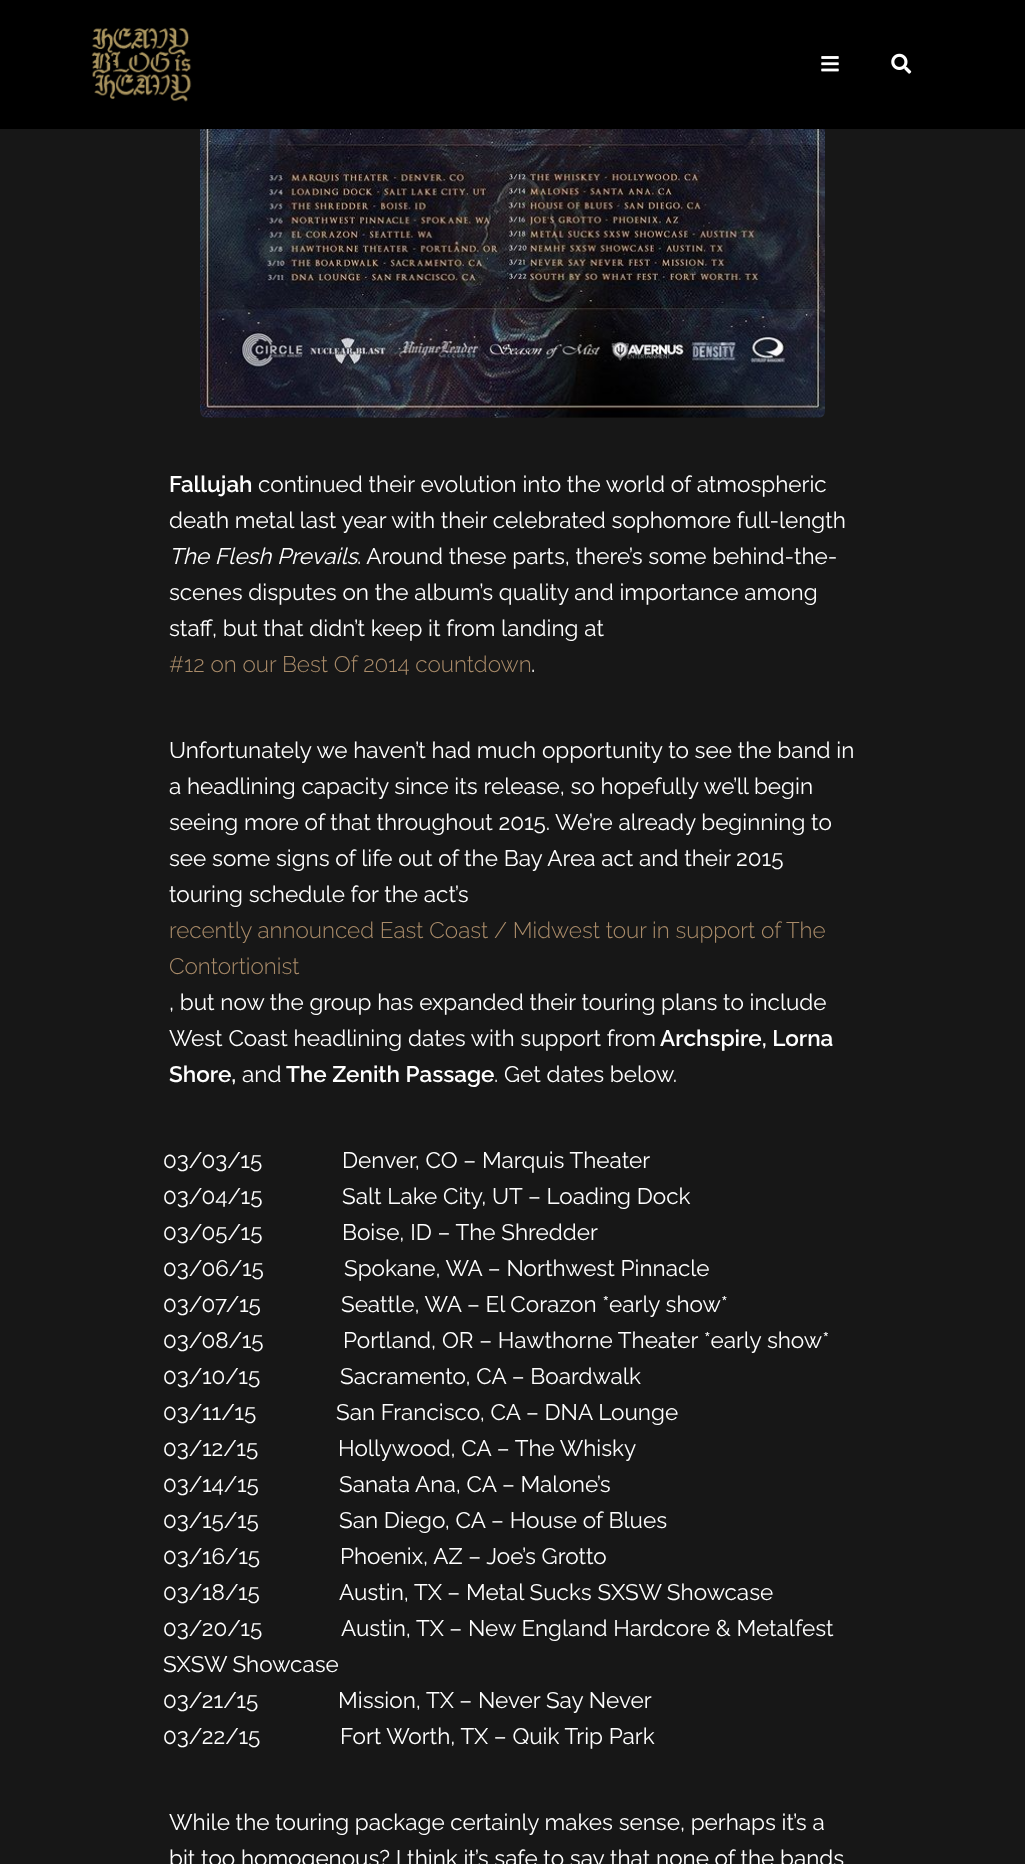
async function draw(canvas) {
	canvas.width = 1025;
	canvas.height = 1864;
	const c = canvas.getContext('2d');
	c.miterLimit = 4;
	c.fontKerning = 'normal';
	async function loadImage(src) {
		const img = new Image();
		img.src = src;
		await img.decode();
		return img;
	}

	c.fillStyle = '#171717';
	c.fillRect(0, 0, 1025, 1864);
	c.fillStyle = '#000';
	c.fillRect(0, 0, 1025, 129);
	c.drawImage(await loadImage('img1.png'), 91, 27, 101, 75);
	c.drawImage(await loadImage('img2.png'), 821, 56, 18, 16);
	c.drawImage(await loadImage('img3.png'), 891, 53, 21, 21);
	c.drawImage(await loadImage('img4.png'), 200, 129, 625, 289);
	c.font = '600 22.5px Raleway';
	c.fillStyle = '#fff';
	c.fillText('Fallujah', 169, 492);
	c.font = '22.5px Raleway';
	c.fillText('continued their evolution into the world of atmospheric', 258, 492);
	c.fillText('death metal last year with their celebrated sophomore full-length', 169, 528);
	c.font = 'italic 22.5px Raleway';
	c.fillText('The Flesh Prevails', 169, 564);
	c.font = '22.5px Raleway';
	for (const [text, x, y] of [
		['. Around these parts, there’s some behind-the-', 357, 564],
		['scenes disputes on the album’s quality and importance among', 169, 600],
		['staff, but that didn’t keep it from landing at', 169, 636],
	]) {
		c.fillText(text, x, y);
	}
	c.font = '300 22.5px Raleway';
	c.fillStyle = '#a98b69';
	c.fillText('#12 on our Best Of 2014 countdown', 169, 672);
	c.font = '22.5px Raleway';
	c.fillStyle = '#fff';
	for (const [text, x, y] of [
		['.', 531, 672],
		['Unfortunately we haven’t had much opportunity to see the band in', 169, 758],
		['a headlining capacity since its release, so hopefully we’ll begin', 169, 794],
		['seeing more of that throughout 2015. We’re already beginning to', 169, 830],
		['see some signs of life out of the Bay Area act and their 2015', 169, 866],
		['touring schedule for the act’s', 169, 902],
	]) {
		c.fillText(text, x, y);
	}
	c.font = '300 22.5px Raleway';
	c.fillStyle = '#a98b69';
	c.fillText('recently announced East Coast / Midwest tour in support of The', 169, 938);
	c.fillText('Contortionist', 169, 974);
	c.font = '22.5px Raleway';
	c.fillStyle = '#fff';
	c.fillText(', but now the group has expanded their touring plans to include', 169, 1010);
	c.fillText('West Coast headlining dates with support from', 169, 1046);
	c.font = '600 22.5px Raleway';
	c.fillText('Archspire, Lorna', 660, 1046);
	c.fillText('Shore,', 169, 1082);
	c.font = '22.5px Raleway';
	c.fillText('and', 242, 1082);
	c.font = '600 22.5px Raleway';
	c.fillText('The Zenith Passage', 286, 1082);
	c.font = '22.5px Raleway';
	for (const [text, x, y] of [
		['. Get dates below.', 494, 1082],
		['03/03/15', 163, 1168],
		['Denver, CO – Marquis Theater', 342, 1168],
		['03/04/15', 163, 1204],
		['Salt Lake City, UT – Loading Dock', 342, 1204],
		['03/05/15', 163, 1240],
		['Boise, ID – The Shredder', 342, 1240],
		['03/06/15', 163, 1276],
		['Spokane, WA – Northwest Pinnacle', 344, 1276],
		['03/07/15', 163, 1312],
		['Seattle, WA – El Corazon *early show*', 341, 1312],
		['03/08/15', 163, 1348],
		['Portland, OR – Hawthorne Theater *early show*', 343, 1348],
		['03/10/15', 163, 1384],
		['Sacramento, CA – Boardwalk', 340, 1384],
		['03/11/15', 163, 1420],
		['San Francisco, CA – DNA Lounge', 336, 1420],
		['03/12/15', 163, 1456],
		['Hollywood, CA – The Whisky', 338, 1456],
		['03/14/15', 163, 1492],
		['Sanata Ana, CA – Malone’s', 339, 1492],
		['03/15/15', 163, 1528],
		['San Diego, CA – House of Blues', 339, 1528],
		['03/16/15', 163, 1564],
		['Phoenix, AZ – Joe’s Grotto', 340, 1564],
		['03/18/15', 163, 1600],
		['Austin, TX – Metal Sucks SXSW Showcase', 339, 1600],
		['03/20/15', 163, 1636],
		['Austin, TX – New England Hardcore & Metalfest', 341, 1636],
		['SXSW Showcase', 163, 1672],
		['03/21/15', 163, 1708],
		['Mission, TX – Never Say Never', 338, 1708],
		['03/22/15', 163, 1744],
		['Fort Worth, TX – Quik Trip Park', 340, 1744],
		['While the touring package certainly makes sense, perhaps it’s a', 169, 1830],
		['bit too homogenous? I think it’s safe to say that none of the bands', 169, 1866],
	]) {
		c.fillText(text, x, y);
	}
}

draw(document.querySelector('canvas'));
